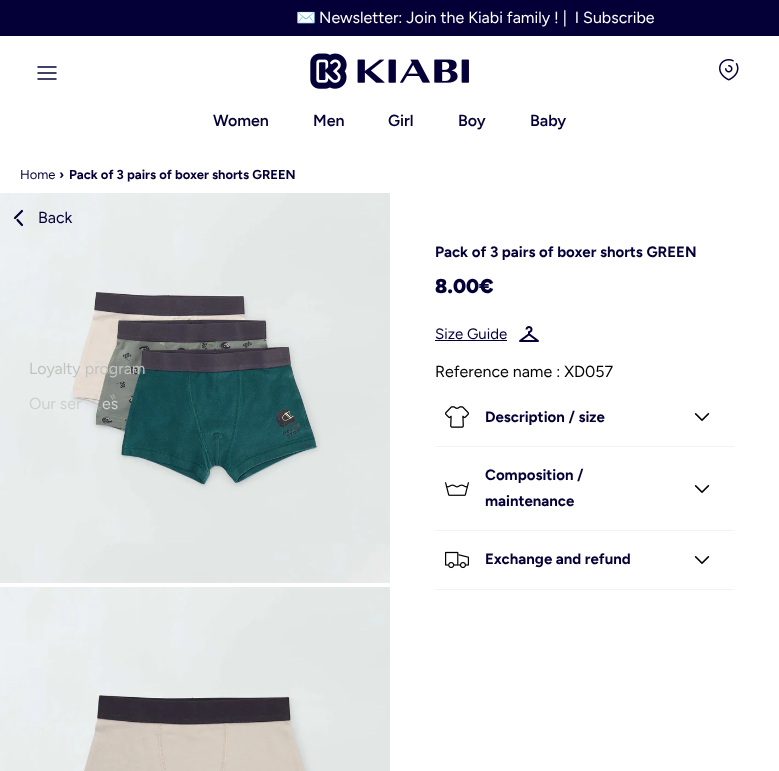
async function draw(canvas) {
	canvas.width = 779;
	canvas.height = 771;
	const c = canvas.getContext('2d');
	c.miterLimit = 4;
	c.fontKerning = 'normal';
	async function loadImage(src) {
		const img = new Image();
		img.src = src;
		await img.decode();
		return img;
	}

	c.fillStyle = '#fff';
	c.fillRect(0, 0, 779, 771);
	c.fillStyle = '#040037';
	c.fillRect(0, 0, 779, 36);
	c.font = '16px Noto Color Emoji';
	c.fillStyle = '#fff';
	c.fillText('✉️', 296, 23);
	c.font = '16px Figtree';
	c.fillText('Newsletter: Join the Kiabi family ! |  I Subscribe', 319, 23);
	c.beginPath();
	c.moveTo(38, 67);
	c.lineTo(56, 67);
	c.moveTo(38, 73);
	c.lineTo(56, 73);
	c.moveTo(38, 79);
	c.lineTo(56, 79);
	c.strokeStyle = '#040037';
	c.lineWidth = 1.5;
	c.lineCap = 'round';
	c.stroke();
	c.drawImage(await loadImage('img1.png'), 310, 53, 159, 36);
	c.drawImage(await loadImage('img2.png'), 719, 59, 20, 22);
	c.font = '600 16px Figtree';
	c.fillStyle = '#040037';
	for (const [text, x, y] of [
		['Women', 213, 126],
		['Men', 313, 126],
		['Girl', 388, 126],
		['Boy', 458, 126],
		['Baby', 530, 126],
	]) {
		c.fillText(text, x, y);
	}
	c.drawImage(await loadImage('img3.png'), 0, 193, 390, 390);
	c.font = '16px Figtree';
	c.fillStyle = '#c0c3bf';
	c.fillText('Loyalty program', 29, 374);
	c.fillStyle = '#ccd0ce';
	c.fillText('Our ser', 29, 409);
	c.fillText('es', 102, 409);
	c.font = '13px Figtree';
	c.fillStyle = '#040037';
	c.fillText('Home', 20, 179);
	c.font = 'bold 13px Figtree';
	c.fillText('›', 59, 179);
	c.fillText('Pack of 3 pairs of boxer shorts GREEN', 69, 179);
	c.drawImage(await loadImage('img4.png'), 0, 587, 390, 184);
	c.beginPath();
	c.moveTo(22, 211);
	c.lineTo(15, 218);
	c.moveTo(22, 225);
	c.lineTo(17.5, 220);
	c.lineWidth = 2.2;
	c.lineJoin = 'round';
	c.stroke();
	c.font = '16px Figtree';
	c.fillText('Back', 38, 223);
	c.font = 'bold 15px Figtree';
	c.fillText('Pack of 3 pairs of boxer shorts GREEN', 435, 257);
	c.font = '900 20px Figtree';
	c.fillText('8.00€', 435, 293);
	c.font = '15px Figtree';
	c.fillText('Size Guide', 435, 339);
	c.fillRect(435, 340, 72, 1);
	c.drawImage(await loadImage('img5.png'), 519, 326, 20, 16);
	c.font = '16px Figtree';
	c.fillStyle = '#000';
	c.fillText('Reference name : XD057', 435, 377);
	c.fillStyle = '#f3f3f5';
	c.fillRect(435, 446, 299, 1);
	c.drawImage(await loadImage('img6.png'), 445, 406, 24, 22);
	c.font = 'bold 15px Figtree';
	c.fillStyle = '#040037';
	c.fillText('Description / size', 485, 422);
	c.drawImage(await loadImage('img7.png'), 694, 413, 16, 8);
	c.fillStyle = '#f3f3f5';
	c.fillRect(435, 530, 299, 1);
	c.drawImage(await loadImage('img8.png'), 445, 482, 24, 14);
	c.fillStyle = '#040037';
	c.fillText('Composition /', 485, 480);
	c.fillText('maintenance', 485, 506);
	c.drawImage(await loadImage('img7.png'), 694, 485, 16, 8);
	c.fillStyle = '#f3f3f5';
	c.fillRect(435, 589, 299, 1);
	c.drawImage(await loadImage('img9.png'), 445, 551, 24, 18);
	c.fillStyle = '#040037';
	c.fillText('Exchange and refund', 485, 564);
	c.drawImage(await loadImage('img7.png'), 694, 556, 16, 8);
}

draw(document.querySelector('canvas'));
